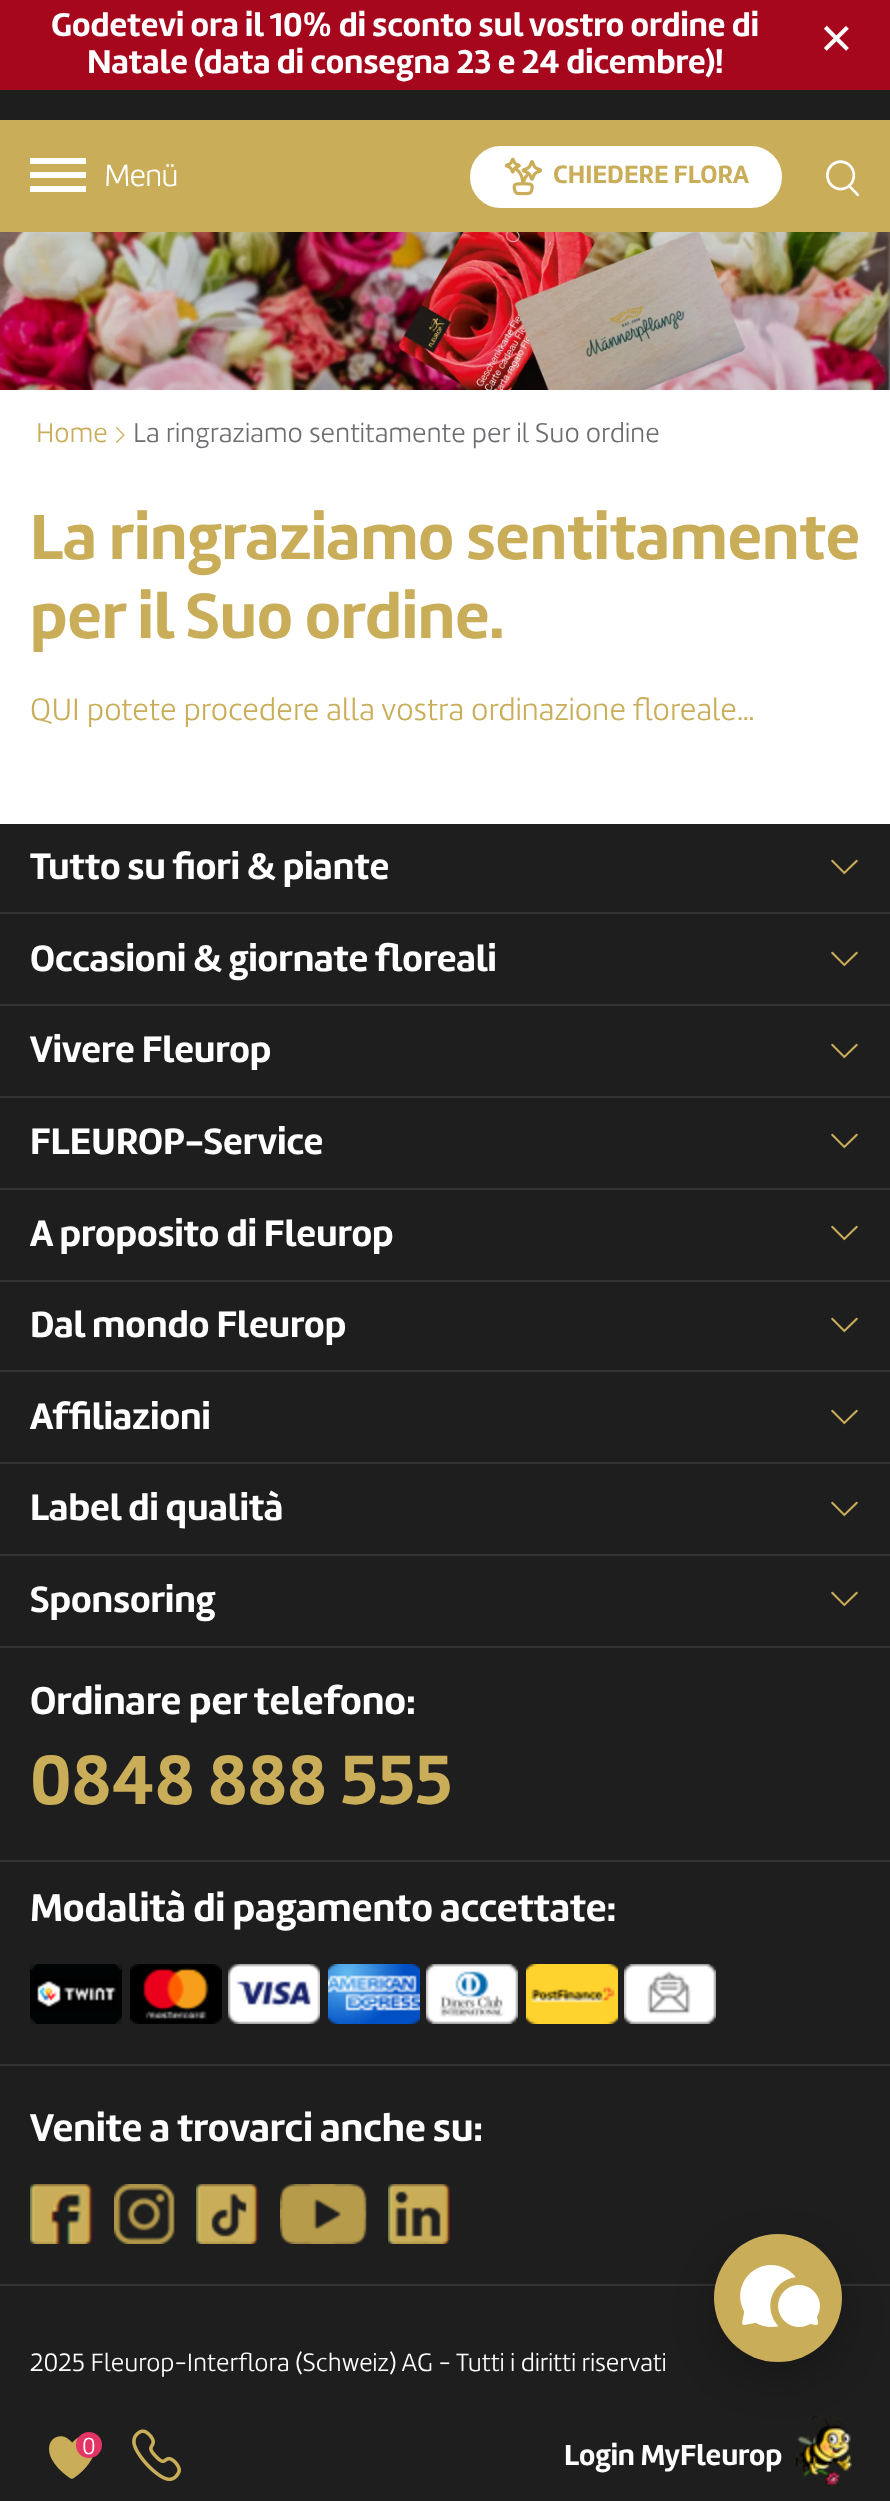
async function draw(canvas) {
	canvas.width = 890;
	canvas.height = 2501;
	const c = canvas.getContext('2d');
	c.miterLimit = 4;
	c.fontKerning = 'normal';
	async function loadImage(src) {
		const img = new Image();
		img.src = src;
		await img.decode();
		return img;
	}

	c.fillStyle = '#fff';
	c.fillRect(0, 0, 890, 2501);
	c.fillStyle = '#a7071d';
	c.fillRect(0, 0, 890, 90);
	c.font = 'bold 34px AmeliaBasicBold';
	c.fillStyle = '#fff';
	c.fillText('Godetevi ora il 10% di sconto sul vostro ordine di', 51, 36);
	c.fillText('Natale (data di consegna 23 e 24 dicembre)!', 87, 73);
	c.font = '56px Liberation Sans';
	c.fillText('×', 820, 57);
	for (const [x, y, w, h, color] of [
		[0, 120, 890, 112, '#caad59'],
		[30, 158, 56, 6, '#fff'],
		[30, 172, 56, 6, '#fff'],
	]) {
		c.fillStyle = color;
		c.fillRect(x, y, w, h);
	}
	c.letterSpacing = '-1px';
	c.font = '300 32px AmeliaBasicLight';
	c.fillText('Menü', 104, 186);
	c.fillRect(30, 186, 56, 6);
	c.beginPath();
	c.roundRect(468, 144, 316, 66, 33);
	c.fill();
	c.strokeStyle = '#caad59';
	c.lineWidth = 4;
	c.stroke();
	c.drawImage(await loadImage('img1.png'), 504, 157, 38, 39);
	c.letterSpacing = '0px';
	c.font = 'bold 26px AmeliaBasicBold';
	c.fillStyle = '#caad59';
	c.fillText('CHIEDERE FLORA', 553, 183);
	c.drawImage(await loadImage('img2.png'), 826, 160, 34, 37);
	c.fillStyle = '#1e1e1e';
	c.fillRect(0, 90, 890, 30);
	c.fillRect(0, 824, 890, 1677);
	c.drawImage(await loadImage('img3.png'), 49, 2436, 44, 43);
	c.fillStyle = '#e23565';
	c.beginPath();
	c.arc(89, 2445, 13, 0, 2 * Math.PI);
	c.fill();
	c.font = '300 24px AmeliaBasicLight';
	c.fillStyle = '#fff';
	c.fillText('0', 82, 2454);
	c.drawImage(await loadImage('img4.png'), 132, 2429, 49, 53);
	c.font = 'bold 30px AmeliaBasicBold';
	c.fillText('Login MyFleurop', 564, 2465);
	c.drawImage(await loadImage('img5.png'), 794, 2416, 58, 70);
	c.drawImage(await loadImage('img6.png'), 0, 232, 890, 158);
	c.font = '300 28px AmeliaBasicLight';
	c.fillStyle = '#caad59';
	c.fillText('Home', 36, 442);
	c.drawImage(await loadImage('img7.png'), 116, 427, 9, 16);
	c.fillStyle = '#6d6e71';
	c.fillText('La ringraziamo sentitamente per il Suo ordine', 133, 442);
	c.font = 'bold 66px AmeliaBasicBold';
	c.fillStyle = '#caad59';
	c.fillText('La ringraziamo sentitamente', 30, 559);
	c.fillText('per il Suo ordine.', 30, 638);
	c.font = '300 32px AmeliaBasicLight';
	c.fillText('QUI potete procedere alla vostra ordinazione floreale…', 30, 720);
	c.fillStyle = '#333';
	c.fillRect(0, 912, 890, 2);
	c.font = 'bold 38px AmeliaBasicBold';
	c.fillStyle = '#fff';
	c.fillText('Tutto su fiori & piante', 30, 879);
	c.drawImage(await loadImage('img8.png'), 831, 859, 27, 16);
	c.fillStyle = '#333';
	c.fillRect(0, 1004, 890, 2);
	c.fillStyle = '#fff';
	c.fillText('Occasioni & giornate floreali', 30, 971);
	c.drawImage(await loadImage('img8.png'), 831, 951, 27, 16);
	c.fillStyle = '#333';
	c.fillRect(0, 1096, 890, 2);
	c.fillStyle = '#fff';
	c.fillText('Vivere Fleurop', 30, 1062);
	c.drawImage(await loadImage('img8.png'), 831, 1043, 27, 16);
	c.fillStyle = '#333';
	c.fillRect(0, 1188, 890, 2);
	c.fillStyle = '#fff';
	c.fillText('FLEUROP-Service', 30, 1154);
	c.drawImage(await loadImage('img8.png'), 831, 1133, 27, 16);
	c.fillStyle = '#333';
	c.fillRect(0, 1280, 890, 2);
	c.fillStyle = '#fff';
	c.fillText('A proposito di Fleurop', 30, 1246);
	c.drawImage(await loadImage('img8.png'), 831, 1225, 27, 16);
	c.fillStyle = '#333';
	c.fillRect(0, 1370, 890, 2);
	c.fillStyle = '#fff';
	c.fillText('Dal mondo Fleurop', 30, 1337);
	c.drawImage(await loadImage('img8.png'), 831, 1317, 27, 16);
	c.fillStyle = '#333';
	c.fillRect(0, 1462, 890, 2);
	c.fillStyle = '#fff';
	c.fillText('Affiliazioni', 30, 1429);
	c.drawImage(await loadImage('img8.png'), 831, 1409, 27, 16);
	c.fillStyle = '#333';
	c.fillRect(0, 1554, 890, 2);
	c.fillStyle = '#fff';
	c.fillText('Label di qualità', 30, 1520);
	c.drawImage(await loadImage('img8.png'), 831, 1501, 27, 16);
	c.fillStyle = '#333';
	c.fillRect(0, 1646, 890, 2);
	c.fillStyle = '#fff';
	c.fillText('Sponsoring', 30, 1612);
	c.drawImage(await loadImage('img8.png'), 831, 1591, 27, 16);
	c.fillStyle = '#333';
	c.fillRect(0, 1860, 890, 2);
	c.font = 'bold 40px AmeliaBasicBold';
	c.fillStyle = '#fff';
	c.fillText('Ordinare per telefono:', 30, 1714);
	c.font = 'bold 72px AmeliaBasicBold';
	c.fillStyle = '#caad59';
	c.fillText('0848 888 555', 30, 1804);
	c.fillStyle = '#333';
	c.fillRect(0, 2064, 890, 2);
	c.font = 'bold 40px AmeliaBasicBold';
	c.fillStyle = '#fff';
	c.fillText('Modalità di pagamento accettate:', 30, 1921);
	c.drawImage(await loadImage('img9.png'), 30, 1964, 92, 60);
	c.drawImage(await loadImage('img10.png'), 130, 1964, 92, 60);
	c.drawImage(await loadImage('img11.png'), 228, 1964, 92, 60);
	c.drawImage(await loadImage('img12.png'), 328, 1964, 92, 60);
	c.drawImage(await loadImage('img13.png'), 426, 1964, 92, 60);
	c.drawImage(await loadImage('img14.png'), 526, 1964, 92, 60);
	c.drawImage(await loadImage('img15.png'), 624, 1964, 92, 60);
	c.fillStyle = '#333';
	c.fillRect(0, 2284, 890, 2);
	c.fillStyle = '#fff';
	c.fillText('Venite a trovarci anche su:', 30, 2141);
	c.drawImage(await loadImage('img16.png'), 30, 2184, 63, 60);
	c.drawImage(await loadImage('img17.png'), 114, 2184, 61, 60);
	c.drawImage(await loadImage('img18.png'), 196, 2184, 63, 60);
	c.drawImage(await loadImage('img19.png'), 280, 2184, 87, 60);
	c.drawImage(await loadImage('img20.png'), 388, 2184, 62, 60);
	c.font = '300 26px AmeliaBasicLight';
	c.fillText('2025 Fleurop-Interflora (Schweiz) AG - Tutti i diritti riservati', 30, 2371);
	c.fillStyle = '#0000003d';
	c.filter = 'blur(20px)';
	c.beginPath();
	c.roundRect(714, 2250, 128, 128, 64);
	c.fill();
	c.filter = 'none';
	c.fillStyle = '#caad59';
	c.beginPath();
	c.arc(778, 2298, 64, 0, 2 * Math.PI);
	c.fill();
	c.drawImage(await loadImage('img21.png'), 740, 2265, 80, 62);
}

draw(document.querySelector('canvas'));
